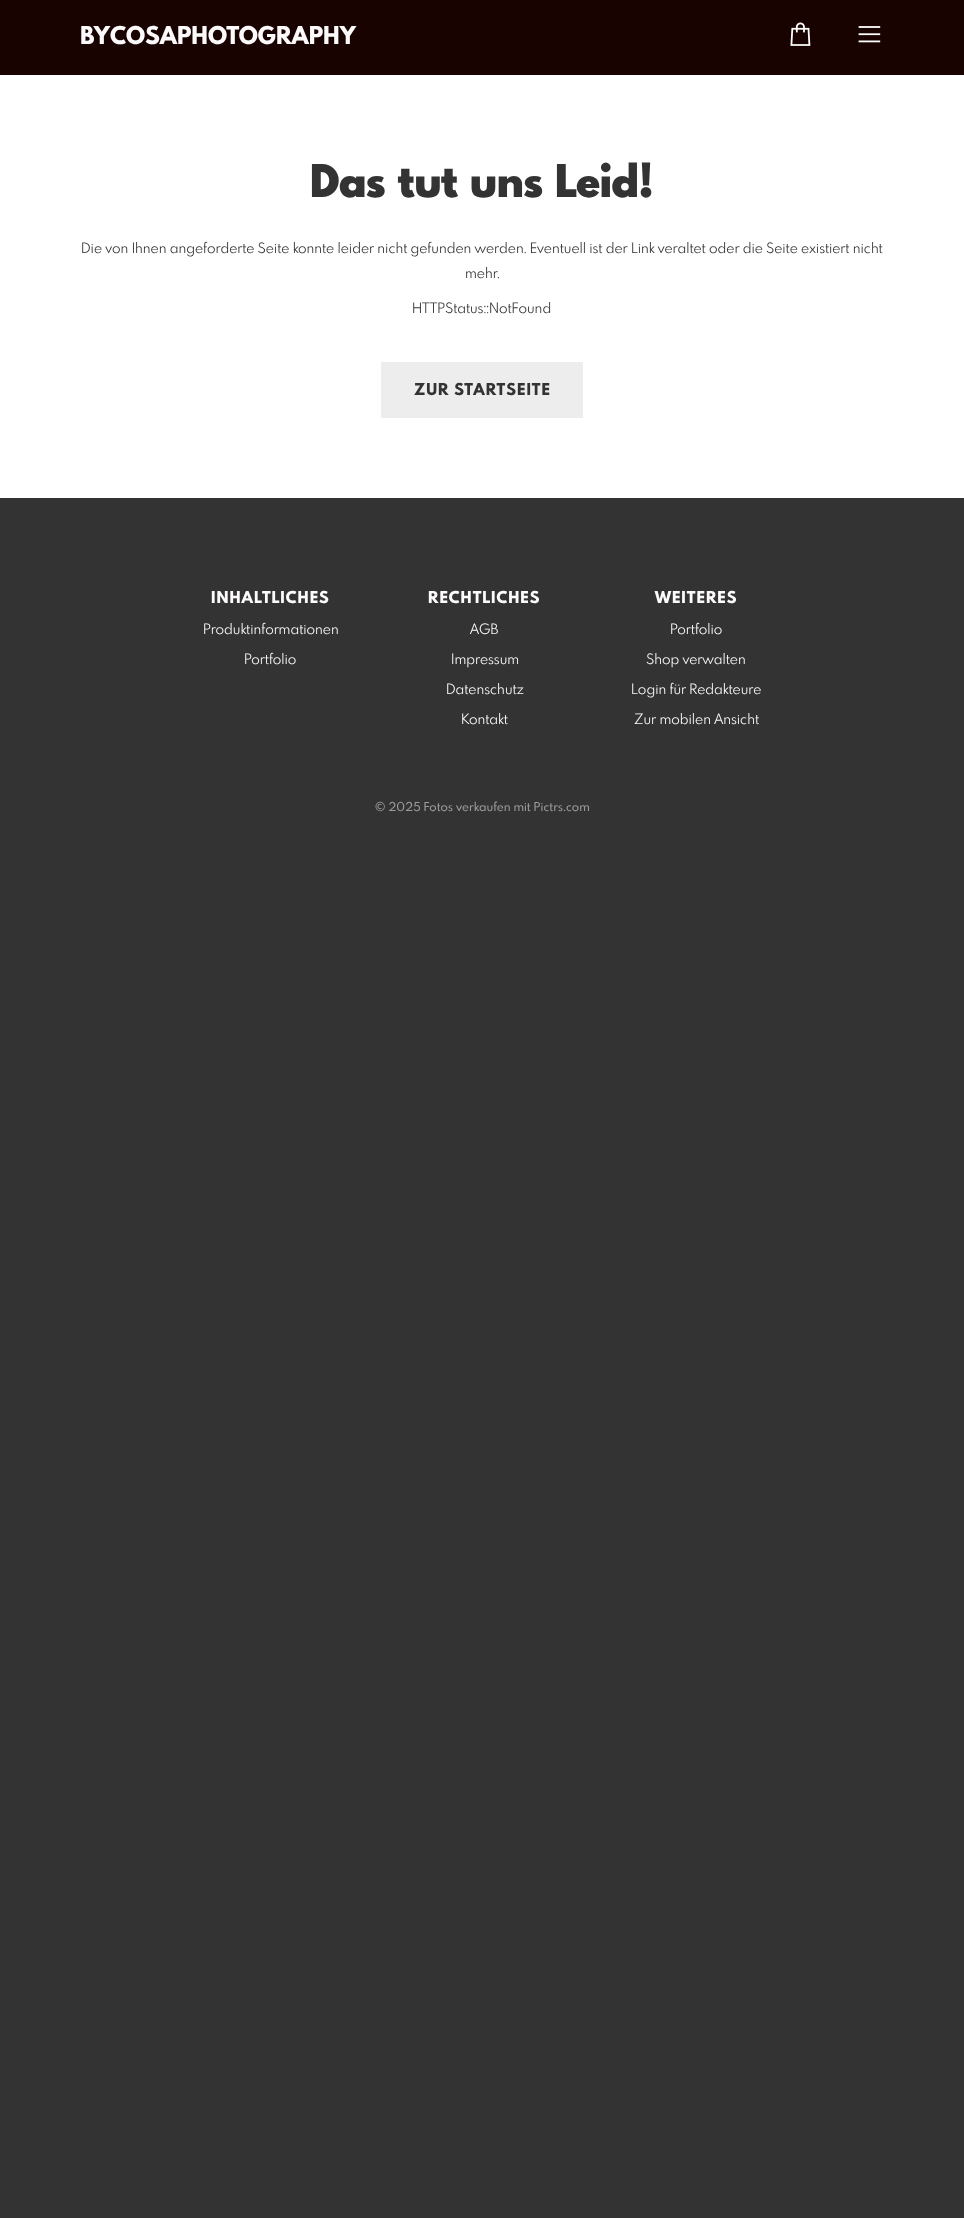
async function draw(canvas) {
	canvas.width = 964;
	canvas.height = 2218;
	const c = canvas.getContext('2d');
	c.miterLimit = 4;
	c.fontKerning = 'normal';
	async function loadImage(src) {
		const img = new Image();
		img.src = src;
		await img.decode();
		return img;
	}

	c.fillStyle = '#333';
	c.fillRect(0, 0, 964, 2218);
	c.fillStyle = '#190301';
	c.fillRect(0, 0, 964, 75);
	c.font = '800 24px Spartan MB';
	c.fillStyle = '#fcfafa';
	c.fillText('BYCOSAPHOTOGRAPHY', 80, 44);
	c.drawImage(await loadImage('img1.png'), 790, 22, 21, 24);
	c.drawImage(await loadImage('img2.png'), 858, 26, 23, 17);
	c.fillStyle = '#fff';
	c.fillRect(0, 75, 964, 423);
	c.font = '900 44px Spartan MB';
	c.fillStyle = '#333';
	c.fillText('Das tut uns Leid!', 310, 197);
	c.font = '14px Spartan MB';
	for (const [text, x, y] of [
		['Die von Ihnen angeforderte Seite konnte leider nicht gefunden werden. Eventuell ist der Link veraltet oder die Seite existiert nicht', 81, 253],
		['mehr.', 465, 278],
		['HTTPStatus::NotFound', 412, 313],
	]) {
		c.fillText(text, x, y);
	}
	c.fillStyle = '#ededed';
	c.fillRect(381, 362, 202, 56);
	c.letterSpacing = '1px';
	c.font = '800 16px Spartan MB';
	c.fillStyle = '#333';
	c.fillText('ZUR STARTSEITE', 414, 395);
	c.fillStyle = '#fcfafa';
	c.fillText('INHALTLICHES', 211, 603);
	c.letterSpacing = '0px';
	c.font = '14px Spartan MB';
	c.fillText('Produktinformationen', 203, 634);
	c.fillText('Portfolio', 244, 664);
	c.letterSpacing = '1px';
	c.font = '800 16px Spartan MB';
	c.fillText('RECHTLICHES', 428, 603);
	c.letterSpacing = '0px';
	c.font = '14px Spartan MB';
	for (const [text, x, y] of [
		['AGB', 470, 634],
		['Impressum', 451, 664],
		['Datenschutz', 446, 694],
		['Kontakt', 461, 724],
	]) {
		c.fillText(text, x, y);
	}
	c.letterSpacing = '1px';
	c.font = '800 16px Spartan MB';
	c.fillText('WEITERES', 655, 603);
	c.letterSpacing = '0px';
	c.font = '14px Spartan MB';
	for (const [text, x, y] of [
		['Portfolio', 670, 634],
		['Shop verwalten', 646, 664],
		['Login für Redakteure', 631, 694],
		['Zur mobilen Ansicht', 634, 724],
	]) {
		c.fillText(text, x, y);
	}
	c.font = '500 12px Spartan MB';
	c.fillStyle = '#9b9b9b';
	c.fillText('© 2025 Fotos verkaufen mit Pictrs.com', 375, 811);
}

draw(document.querySelector('canvas'));
